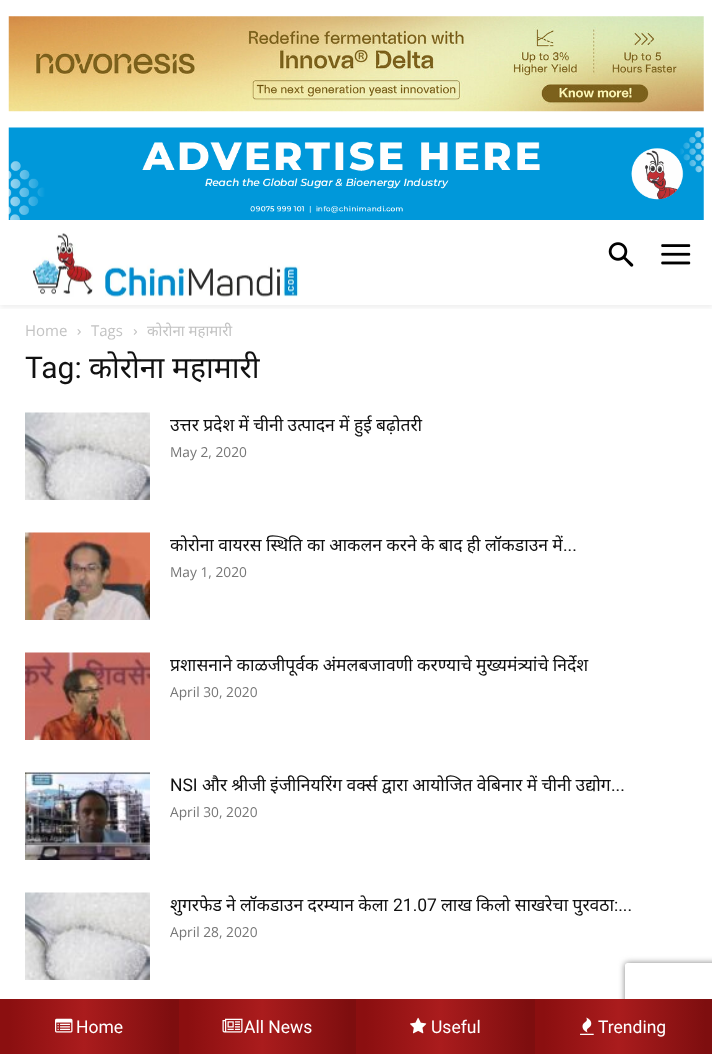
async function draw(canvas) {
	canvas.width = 712;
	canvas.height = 1054;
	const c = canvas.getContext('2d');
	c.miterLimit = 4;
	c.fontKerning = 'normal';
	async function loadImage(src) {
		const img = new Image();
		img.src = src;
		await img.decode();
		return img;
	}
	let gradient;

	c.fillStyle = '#fff';
	c.fillRect(0, 0, 712, 1054);
	c.drawImage(await loadImage('img1.png'), 8, 16, 696, 96);
	c.drawImage(await loadImage('img2.png'), 8, 127, 696, 93);
	c.drawImage(await loadImage('img3.png'), 32, 233, 268, 64);
	c.drawImage(await loadImage('img4.png'), 608, 242, 26, 25);
	c.drawImage(await loadImage('img5.png'), 661, 244, 30, 21);
	c.save();
	c.beginPath();
	c.rect(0, 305, 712, 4);
	c.clip();
	c.fillStyle = '#0000000f';
	c.filter = 'blur(2.5px)';
	c.beginPath();
	c.rect(0, 230, 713, 78);
	c.fill();
	c.filter = 'none';
	c.restore();
	c.font = '15px Open Sans';
	c.fillStyle = '#c3c3c3';
	c.fillText('Home', 25, 336);
	c.drawImage(await loadImage('img6.png'), 77, 329, 4, 6);
	c.fillText('Tags', 91, 336);
	c.drawImage(await loadImage('img7.png'), 133, 329, 4, 6);
	c.font = '15px Noto Sans';
	c.fillText('कोरोना महामारी', 147, 336);
	c.font = '30px Roboto';
	c.fillStyle = '#111';
	c.fillText('Tag:', 25, 378);
	c.font = '30px Noto Sans';
	c.fillText('कोरोना महामारी', 89, 378);
	c.drawImage(await loadImage('img8.png'), 25, 412, 125, 88);
	c.wordSpacing = '-0.25px';
	c.font = '17.5px Noto Sans';
	c.fillText('उत्तर प्रदेश में चीनी उत्पादन में हुई बढ़ोतरी', 170, 431);
	c.wordSpacing = '0px';
	c.font = '13.75px Open Sans';
	c.fillStyle = '#767676';
	c.fillText('May 2, 2020', 170, 457);
	c.drawImage(await loadImage('img9.png'), 25, 532, 125, 88);
	c.wordSpacing = '-0.25px';
	c.font = '17.5px Noto Sans';
	c.fillStyle = '#111';
	c.fillText('कोरोना वायरस स्थिति का आकलन करने के बाद ही लॉकडाउन में', 170, 551);
	c.wordSpacing = '0px';
	c.font = '17.5px Roboto';
	c.fillText('...', 563, 551);
	c.font = '13.75px Open Sans';
	c.fillStyle = '#767676';
	c.fillText('May 1, 2020', 170, 577);
	c.drawImage(await loadImage('img10.png'), 25, 652, 125, 88);
	c.wordSpacing = '-0.25px';
	c.font = '17.5px Noto Sans';
	c.fillStyle = '#111';
	c.fillText('प्रशासनाने काळजीपूर्वक अंमलबजावणी करण्याचे मुख्यमंत्र्यांचे निर्देश', 170, 671);
	c.wordSpacing = '0px';
	c.font = '13.75px Open Sans';
	c.fillStyle = '#767676';
	c.fillText('April 30, 2020', 170, 697);
	c.drawImage(await loadImage('img11.png'), 25, 772, 125, 88);
	c.font = '17.5px Roboto';
	c.fillStyle = '#111';
	c.fillText('NSI', 170, 791);
	c.wordSpacing = '-0.25px';
	c.font = '17.5px Noto Sans';
	c.fillText('और श्रीजी इंजीनियरिंग वर्क्स द्वारा आयोजित वेबिनार में चीनी उद्योग', 202, 791);
	c.wordSpacing = '0px';
	c.font = '17.5px Roboto';
	c.fillText('...', 611, 791);
	c.font = '13.75px Open Sans';
	c.fillStyle = '#767676';
	c.fillText('April 30, 2020', 170, 817);
	c.drawImage(await loadImage('img8.png'), 25, 892, 125, 88);
	c.wordSpacing = '-0.25px';
	c.font = '17.5px Noto Sans';
	c.fillStyle = '#111';
	c.fillText('शुगरफेड ने लॉकडाउन दरम्यान केला', 170, 911);
	c.wordSpacing = '0px';
	c.font = '17.5px Roboto';
	c.fillText('21.07', 393, 911);
	c.wordSpacing = '-0.25px';
	c.font = '17.5px Noto Sans';
	c.fillText('लाख किलो साखरेचा पुरवठा', 441, 911);
	c.wordSpacing = '0px';
	c.font = '17.5px Roboto';
	c.fillText(':...', 614, 911);
	c.font = '13.75px Open Sans';
	c.fillStyle = '#767676';
	c.fillText('April 28, 2020', 170, 937);
	c.save();
	c.beginPath();
	c.moveTo(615, 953);
	c.lineTo(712, 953);
	c.lineTo(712, 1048);
	c.lineTo(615, 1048);
	c.closePath();
	c.moveTo(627.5, 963);
	c.lineTo(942.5, 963);
	c.bezierCurveTo(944, 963, 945, 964, 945, 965.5);
	c.lineTo(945, 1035.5);
	c.bezierCurveTo(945, 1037, 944, 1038, 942.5, 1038);
	c.lineTo(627.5, 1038);
	c.bezierCurveTo(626, 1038, 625, 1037, 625, 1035.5);
	c.lineTo(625, 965.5);
	c.bezierCurveTo(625, 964, 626, 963, 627.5, 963);
	c.closePath();
	c.clip('evenodd');
	c.fillStyle = '#808080';
	c.filter = 'blur(3px)';
	c.beginPath();
	c.roundRect(625, 963, 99, 75, 2.5);
	c.fill();
	c.filter = 'none';
	c.restore();
	gradient = c.createLinearGradient(0, 1027, 179, 1027);
	gradient.addColorStop(0.05, '#8b0f10');
	gradient.addColorStop(0.47, '#aa1c1d');
	gradient.addColorStop(0.96, '#7e0e0f');
	c.fillStyle = gradient;
	c.fillRect(0, 999, 179, 55);
	c.drawImage(await loadImage('img12.png'), 55, 1018, 18, 15);
	c.font = '17.5px Roboto';
	c.fillStyle = '#fff';
	c.fillText('Home', 76, 1033);
	gradient = c.createLinearGradient(179, 1027, 356, 1027);
	gradient.addColorStop(0.05, '#8b0f10');
	gradient.addColorStop(0.47, '#aa1c1d');
	gradient.addColorStop(0.96, '#7e0e0f');
	c.fillStyle = gradient;
	c.fillRect(179, 999, 177, 55);
	c.drawImage(await loadImage('img13.png'), 222, 1018, 21, 15);
	c.fillStyle = '#fff';
	c.fillText('All News', 244, 1033);
	gradient = c.createLinearGradient(356, 1027, 535, 1027);
	gradient.addColorStop(0.05, '#8b0f10');
	gradient.addColorStop(0.47, '#aa1c1d');
	gradient.addColorStop(0.96, '#7e0e0f');
	c.fillStyle = gradient;
	c.fillRect(356, 999, 179, 55);
	c.drawImage(await loadImage('img14.png'), 410, 1017, 17, 17);
	c.fillStyle = '#fff';
	c.fillText('Useful', 431, 1033);
	gradient = c.createLinearGradient(535, 1027, 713, 1027);
	gradient.addColorStop(0.05, '#8b0f10');
	gradient.addColorStop(0.47, '#aa1c1d');
	gradient.addColorStop(0.96, '#7e0e0f');
	c.fillStyle = gradient;
	c.fillRect(535, 999, 177, 55);
	c.drawImage(await loadImage('img15.png'), 580, 1017, 14, 18);
	c.fillStyle = '#fff';
	c.fillText('Trending', 598, 1033);
}

draw(document.querySelector('canvas'));
